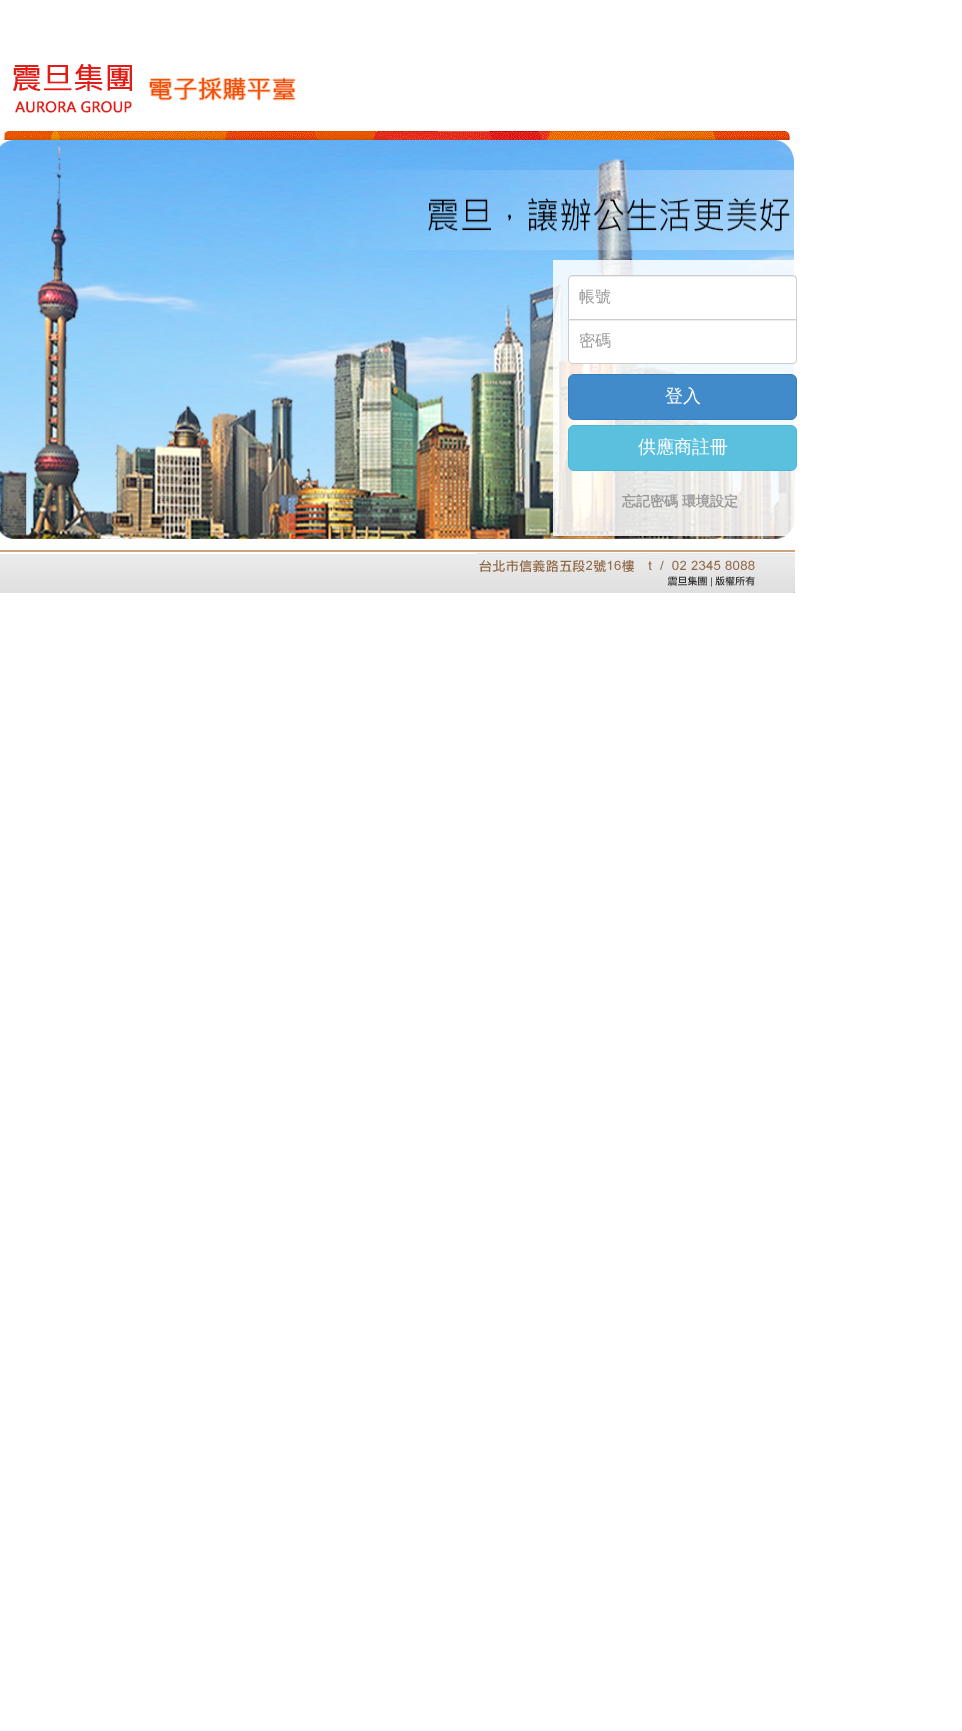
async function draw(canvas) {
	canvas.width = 962;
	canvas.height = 1731;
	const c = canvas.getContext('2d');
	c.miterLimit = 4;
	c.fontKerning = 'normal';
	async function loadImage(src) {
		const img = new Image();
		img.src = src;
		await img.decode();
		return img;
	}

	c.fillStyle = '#fff';
	c.fillRect(0, 0, 962, 1731);
	c.drawImage(await loadImage('img1.png'), 3, 64, 788, 76);
	c.drawImage(await loadImage('img2.png'), 0, 140, 795, 400);
	c.fillStyle = '#ffffffd9';
	c.fillRect(553, 260, 242, 276);
	c.fillStyle = '#fff';
	c.beginPath();
	c.roundRect(568, 275, 229, 45, [4, 4, 0, 0]);
	c.fill();
	c.fillStyle = '#ececec';
	c.beginPath();
	c.moveTo(572, 277);
	c.lineTo(793, 277);
	c.bezierCurveTo(795, 277, 796, 278, 796, 280);
	c.lineTo(796, 279);
	c.bezierCurveTo(796, 277, 795, 276, 793, 276);
	c.lineTo(572, 276);
	c.bezierCurveTo(570, 276, 569, 277, 569, 279);
	c.lineTo(569, 280);
	c.bezierCurveTo(569, 278, 570, 277, 572, 277);
	c.closePath();
	c.fill();
	c.beginPath();
	c.roundRect(568.5, 275.5, 228, 44, [3.5, 3.5, 0, 0]);
	c.strokeStyle = '#ccc';
	c.stroke();
	c.font = '500 16px WenQuanYi Zen Hei';
	c.fillStyle = '#999';
	c.fillText('帳號', 579, 302);
	c.fillStyle = '#fff';
	c.beginPath();
	c.roundRect(568, 319, 229, 45, [0, 0, 4, 4]);
	c.fill();
	c.fillStyle = '#ececec';
	c.fillRect(569, 320, 227, 1);
	c.beginPath();
	c.roundRect(568.5, 319.5, 228, 44, [0, 0, 3.5, 3.5]);
	c.stroke();
	c.fillStyle = '#999';
	c.fillText('密碼', 579, 346);
	c.fillStyle = '#428bca';
	c.beginPath();
	c.roundRect(568.5, 374.5, 228, 45, 5.5);
	c.fill();
	c.strokeStyle = '#357ebd';
	c.stroke();
	c.font = '500 18px WenQuanYi Zen Hei';
	c.fillStyle = '#fff';
	c.fillText('登入', 665, 402);
	c.fillStyle = '#5bc0de';
	c.beginPath();
	c.roundRect(568.5, 425.5, 228, 45, 5.5);
	c.fill();
	c.strokeStyle = '#46b8da';
	c.stroke();
	c.fillStyle = '#fff';
	c.fillText('供應商註冊', 638, 453);
	c.font = 'bold 14px WenQuanYi Zen Hei';
	c.fillStyle = '#999';
	c.fillText('忘記密碼', 622, 506);
	c.fillText('環境設定', 682, 506);
	c.drawImage(await loadImage('img3.png'), 0, 552, 477, 41);
	c.fillStyle = '#cca480';
	c.fillRect(0, 550, 795, 2);
	c.drawImage(await loadImage('img4.png'), 477, 552, 318, 41);
}

draw(document.querySelector('canvas'));
